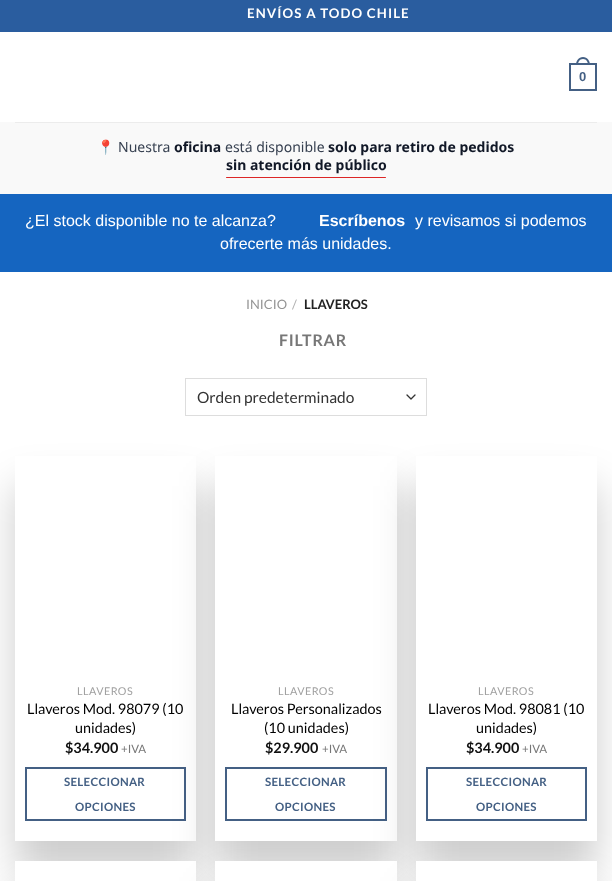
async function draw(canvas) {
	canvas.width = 612;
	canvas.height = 881;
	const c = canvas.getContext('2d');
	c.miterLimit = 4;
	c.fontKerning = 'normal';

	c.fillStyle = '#fff';
	c.fillRect(0, 0, 612, 881);
	c.fillStyle = '#2a5d9f';
	c.fillRect(0, 0, 612, 32);
	c.letterSpacing = '1.1px';
	c.font = 'bold 13.25px Lato';
	c.fillStyle = '#fff';
	c.fillText('ENVÍOS A TODO CHILE', 247, 18);
	c.strokeStyle = '#446084';
	c.lineWidth = 2;
	c.strokeRect(570, 64, 26, 26);
	c.fillStyle = '#446084';
	c.beginPath();
	c.moveTo(583, 57);
	c.bezierCurveTo(587.5, 57, 590, 61, 590, 65);
	c.lineTo(576, 65);
	c.bezierCurveTo(576, 61, 578.5, 57, 583, 57);
	c.closePath();
	c.moveTo(583, 59);
	c.bezierCurveTo(586.5, 59, 588, 62, 588, 65);
	c.lineTo(578, 65);
	c.bezierCurveTo(578, 62, 579.5, 59, 583, 59);
	c.closePath();
	c.fill('evenodd');
	c.letterSpacing = '0px';
	c.font = 'bold 13px Liberation Sans';
	c.fillText('0', 579, 81);
	c.fillStyle = '#f9f9f9';
	c.fillRect(0, 122, 612, 72);
	c.fillStyle = '#ececec';
	c.fillRect(15, 122, 582, 1);
	c.font = '14px Noto Color Emoji';
	c.fillStyle = '#374151';
	c.fillText('📍', 97, 152);
	c.font = '14px Noto Sans';
	c.fillText('Nuestra', 118, 152);
	c.font = 'bold 14px Noto Sans';
	c.fillStyle = '#111827';
	c.fillText('oficina', 174, 152);
	c.font = '14px Noto Sans';
	c.fillStyle = '#374151';
	c.fillText('está disponible', 225, 152);
	c.font = 'bold 14px Noto Sans';
	c.fillStyle = '#111827';
	c.fillText('solo para retiro de pedidos', 328, 152);
	c.fillText('sin atención de público', 226, 170);
	c.fillStyle = '#dc2626';
	c.beginPath();
	c.roundRect(226, 177, 160, 1, 0.5);
	c.fill();
	c.fillStyle = '#1565c0';
	c.fillRect(0, 194, 612, 78);
	c.font = '16px Liberation Sans';
	c.fillStyle = '#fff';
	c.fillText('¿El stock disponible no te alcanza?', 25, 226);
	c.font = 'bold 16px Liberation Sans';
	c.fillText('Escríbenos', 319, 226);
	c.font = '16px Liberation Sans';
	c.fillText('y revisamos si podemos', 415, 226);
	c.fillText('ofrecerte más unidades.', 220, 249);
	c.font = '13px Lato';
	c.fillStyle = '#949494';
	c.fillText('INICIO', 246, 309);
	c.fillStyle = '#b2b2b2';
	c.fillText('/', 292, 309);
	c.font = 'bold 13px Lato';
	c.fillStyle = '#222';
	c.fillText('LLAVEROS', 304, 309);
	c.letterSpacing = '0.75px';
	c.font = 'bold 16px Lato';
	c.fillStyle = '#777';
	c.fillText('FILTRAR', 279, 346);
	c.beginPath();
	c.moveTo(407, 395);
	c.lineTo(411, 399);
	c.lineTo(415, 395);
	c.strokeStyle = '#333';
	c.lineWidth = 1.3;
	c.lineCap = 'round';
	c.lineJoin = 'round';
	c.stroke();
	c.strokeStyle = '#ddd';
	c.lineWidth = 1;
	c.lineJoin = 'miter';
	c.strokeRect(185.5, 378.5, 241, 37);
	c.letterSpacing = '0px';
	c.font = '15.5px Lato';
	c.fillStyle = '#333';
	c.fillText('Orden predeterminado', 197, 403);
	c.save();
	c.beginPath();
	c.moveTo(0, 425);
	c.lineTo(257, 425);
	c.lineTo(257, 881);
	c.lineTo(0, 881);
	c.closePath();
	c.moveTo(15, 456);
	c.lineTo(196, 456);
	c.lineTo(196, 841);
	c.lineTo(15, 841);
	c.closePath();
	c.clip('evenodd');
	c.fillStyle = '#00000033';
	c.filter = 'blur(20px)';
	c.beginPath();
	c.rect(15, 486, 181, 385);
	c.fill();
	c.filter = 'none';
	c.restore();
	c.letterSpacing = '0.5px';
	c.font = '10.75px Lato';
	c.fillStyle = '#a0a0a0';
	c.fillText('LLAVEROS', 77, 695);
	c.letterSpacing = '0px';
	c.font = '14.4px Lato';
	c.fillStyle = '#000';
	c.fillText('Llaveros Mod. 98079 (10', 27, 714);
	c.fillText('unidades)', 75, 733);
	c.font = 'bold 14.4px Lato';
	c.fillStyle = '#111';
	c.fillText('$34.900', 65, 753);
	c.font = '11.5px Lato';
	c.fillStyle = '#777';
	c.fillText('+IVA', 121, 753);
	c.strokeStyle = '#446084';
	c.lineWidth = 2;
	c.strokeRect(26, 768, 159, 52);
	c.letterSpacing = '0.3px';
	c.font = 'bold 11.5px Lato';
	c.fillStyle = '#446084';
	c.fillText('SELECCIONAR', 64, 786);
	c.fillText('OPCIONES', 75, 811);
	c.fillStyle = '#00000033';
	c.filter = 'blur(20px)';
	c.beginPath();
	c.rect(215, 486, 182, 385);
	c.fill();
	c.filter = 'none';
	c.fillStyle = '#fff';
	c.fillRect(215, 456, 182, 385);
	c.letterSpacing = '0.5px';
	c.font = '10.75px Lato';
	c.fillStyle = '#a0a0a0';
	c.fillText('LLAVEROS', 278, 695);
	c.letterSpacing = '0px';
	c.font = '14.4px Lato';
	c.fillStyle = '#000';
	c.fillText('Llaveros Personalizados', 231, 714);
	c.fillText('(10 unidades)', 264, 733);
	c.font = 'bold 14.4px Lato';
	c.fillStyle = '#111';
	c.fillText('$29.900', 265, 753);
	c.font = '11.5px Lato';
	c.fillStyle = '#777';
	c.fillText('+IVA', 322, 753);
	c.strokeRect(226, 768, 160, 52);
	c.letterSpacing = '0.3px';
	c.font = 'bold 11.5px Lato';
	c.fillStyle = '#446084';
	c.fillText('SELECCIONAR', 265, 786);
	c.fillText('OPCIONES', 275, 811);
	c.fillStyle = '#00000033';
	c.filter = 'blur(20px)';
	c.beginPath();
	c.rect(416, 486, 181, 385);
	c.fill();
	c.filter = 'none';
	c.fillStyle = '#fff';
	c.fillRect(416, 456, 181, 385);
	c.letterSpacing = '0.5px';
	c.font = '10.75px Lato';
	c.fillStyle = '#a0a0a0';
	c.fillText('LLAVEROS', 478, 695);
	c.letterSpacing = '0px';
	c.font = '14.4px Lato';
	c.fillStyle = '#000';
	c.fillText('Llaveros Mod. 98081 (10', 428, 714);
	c.fillText('unidades)', 476, 733);
	c.font = 'bold 14.4px Lato';
	c.fillStyle = '#111';
	c.fillText('$34.900', 466, 753);
	c.font = '11.5px Lato';
	c.fillStyle = '#777';
	c.fillText('+IVA', 522, 753);
	c.strokeRect(427, 768, 159, 52);
	c.letterSpacing = '0.3px';
	c.font = 'bold 11.5px Lato';
	c.fillStyle = '#446084';
	c.fillText('SELECCIONAR', 466, 786);
	c.fillText('OPCIONES', 476, 811);
	c.fillStyle = '#00000033';
	c.filter = 'blur(20px)';
	c.beginPath();
	c.rect(15, 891, 181, 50);
	c.fill();
	c.filter = 'none';
	c.fillStyle = '#fff';
	c.fillRect(15, 861, 181, 20);
	c.fillStyle = '#00000033';
	c.filter = 'blur(20px)';
	c.beginPath();
	c.rect(215, 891, 182, 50);
	c.fill();
	c.filter = 'none';
	c.fillStyle = '#fff';
	c.fillRect(215, 861, 182, 20);
	c.fillStyle = '#00000033';
	c.filter = 'blur(20px)';
	c.beginPath();
	c.rect(416, 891, 181, 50);
	c.fill();
	c.filter = 'none';
	c.fillStyle = '#fff';
	c.fillRect(416, 861, 181, 20);
}

draw(document.querySelector('canvas'));
